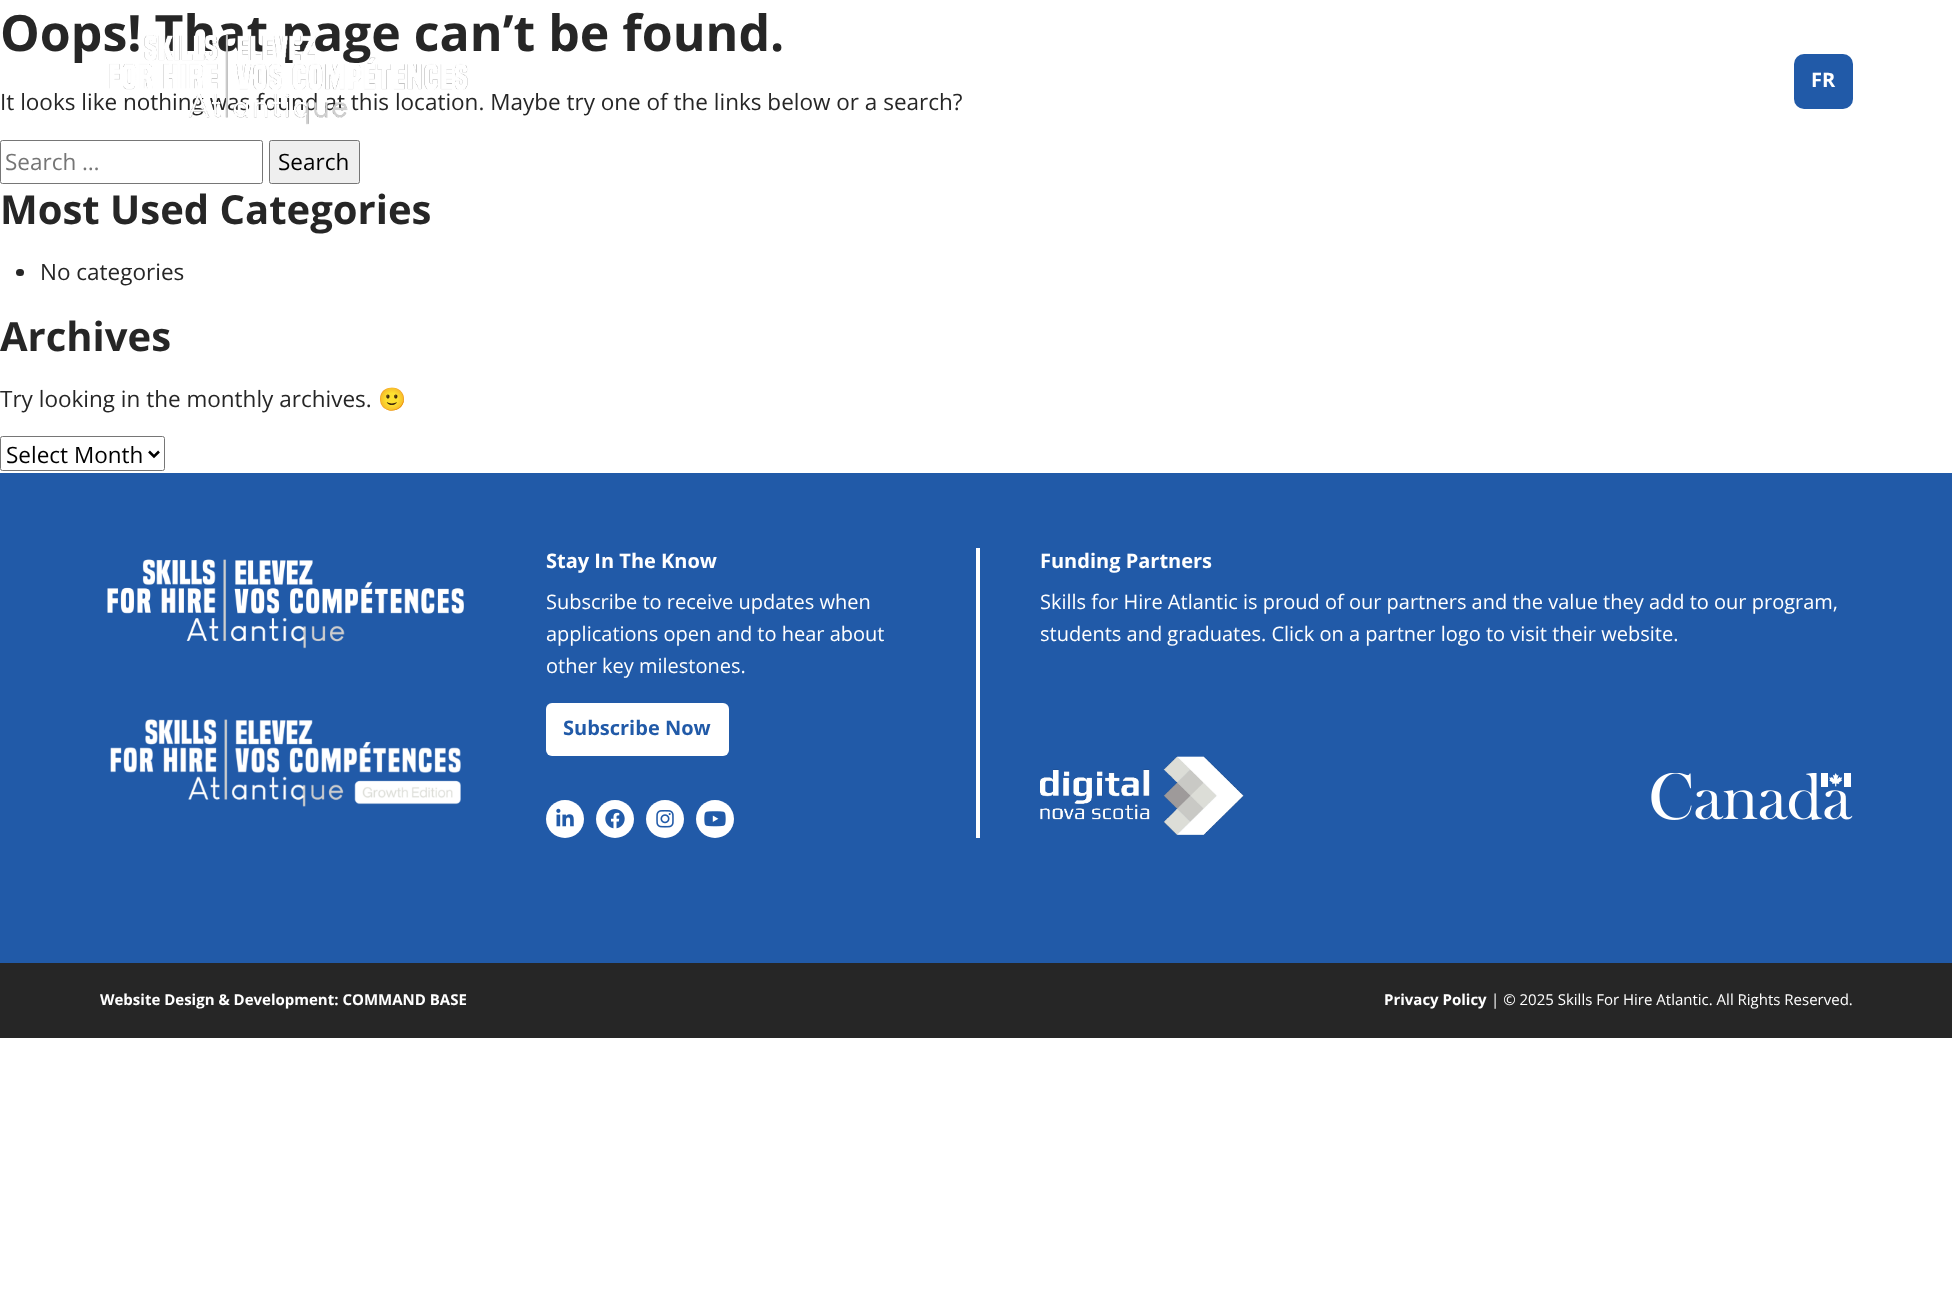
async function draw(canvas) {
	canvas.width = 1952;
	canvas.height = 1296;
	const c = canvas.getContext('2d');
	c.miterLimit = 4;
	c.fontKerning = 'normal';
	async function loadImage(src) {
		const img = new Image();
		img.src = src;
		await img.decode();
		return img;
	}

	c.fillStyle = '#fff';
	c.fillRect(0, 0, 1952, 1296);
	c.font = 'bold 50px Open Sans';
	c.fillStyle = '#262626';
	c.fillText('Oops! That page can’t be found.', 0, 51);
	c.font = '22.5px Open Sans';
	c.fillText('It looks like nothing was found at this location. Maybe try one of the links below or a search?', 0, 110);
	c.beginPath();
	c.roundRect(0.5, 140.5, 262, 43, 2);
	c.strokeStyle = '#767676';
	c.stroke();
	c.fillStyle = '#757575';
	c.fillText('Search …', 5, 170);
	c.fillStyle = '#efefef';
	c.beginPath();
	c.roundRect(269.5, 140.5, 90, 43, 2);
	c.fill();
	c.stroke();
	c.fillStyle = '#000';
	c.fillText('Search', 278, 170);
	c.font = 'bold 40px Open Sans';
	c.fillStyle = '#262626';
	c.fillText('Most Used Categories', 0, 224);
	c.beginPath();
	c.roundRect(16, 269, 8, 7, 3.5);
	c.fill();
	c.font = '22.5px Open Sans';
	c.fillText('No categories', 40, 280);
	c.font = 'bold 40px Open Sans';
	c.fillText('Archives', 0, 351);
	c.font = '22.5px Open Sans';
	c.fillText('Try looking in the monthly archives.', 0, 407);
	c.font = '22.5px Noto Color Emoji';
	c.fillText('🙂', 378, 407);
	c.beginPath();
	c.roundRect(0.5, 436.5, 164, 34, 2);
	c.stroke();
	c.beginPath();
	c.moveTo(149, 451.5);
	c.lineTo(154, 456.5);
	c.lineTo(159, 451.5);
	c.strokeStyle = '#000';
	c.lineWidth = 2.5;
	c.stroke();
	c.font = '22.5px Open Sans';
	c.fillStyle = '#000';
	c.fillText('Select Month', 6, 463);
	c.drawImage(await loadImage('img1.png'), 109, 35, 359, 90);
	c.fillStyle = '#215aa8';
	c.beginPath();
	c.roundRect(1794, 54, 59, 55, 10);
	c.fill();
	c.font = 'bold 20px Open Sans';
	c.fillStyle = '#fff';
	c.fillText('FR', 1811, 87);
	c.fillStyle = '#215aa8';
	c.fillRect(0, 473, 1952, 490);
	c.drawImage(await loadImage('img2.png'), 107, 559, 357, 248);
	c.fillStyle = '#fff';
	c.fillText('Stay In The Know', 546, 568);
	c.font = '20px Open Sans';
	for (const [text, x, y] of [
		['Subscribe to receive updates when', 546, 609],
		['applications open and to hear about', 546, 641],
		['other key milestones.', 546, 673],
	]) {
		c.fillText(text, x, y);
	}
	c.beginPath();
	c.roundRect(546, 703, 183, 53, 6);
	c.fill();
	c.font = 'bold 20px Open Sans';
	c.fillStyle = '#215aa8';
	c.fillText('Subscribe Now', 563, 735);
	c.fillStyle = '#fff';
	c.beginPath();
	c.arc(565, 819, 19, 0, 2 * Math.PI);
	c.fill();
	c.drawImage(await loadImage('img3.png'), 556, 808, 18, 19);
	c.beginPath();
	c.arc(615, 819, 19, 0, 2 * Math.PI);
	c.fill();
	c.drawImage(await loadImage('img4.png'), 605, 809, 20, 20);
	c.beginPath();
	c.arc(665, 819, 19, 0, 2 * Math.PI);
	c.fill();
	c.drawImage(await loadImage('img5.png'), 656, 810, 18, 18);
	c.beginPath();
	c.arc(715, 819, 19, 0, 2 * Math.PI);
	c.fill();
	c.drawImage(await loadImage('img6.png'), 704, 811, 22, 16);
	c.fillRect(976, 548, 4, 290);
	c.fillText('Funding Partners', 1040, 568);
	c.font = '20px Open Sans';
	c.fillText('Skills for Hire Atlantic is proud of our partners and the value they add to our program,', 1040, 609);
	c.fillText('students and graduates. Click on a partner logo to visit their website.', 1040, 641);
	c.drawImage(await loadImage('img7.png'), 1040, 756, 204, 79);
	c.drawImage(await loadImage('img8.png'), 1651, 773, 202, 47);
	c.fillStyle = '#262626';
	c.fillRect(0, 963, 1952, 75);
	c.font = 'bold 15px Open Sans';
	c.fillStyle = '#fff';
	c.fillText('Website Design & Development: COMMAND BASE', 100, 1005);
	c.fillText('Privacy Policy', 1384, 1005);
	c.font = '15px Open Sans';
	c.fillText('| © 2025 Skills For Hire Atlantic. All Rights Reserved.', 1491, 1005);
}

draw(document.querySelector('canvas'));
